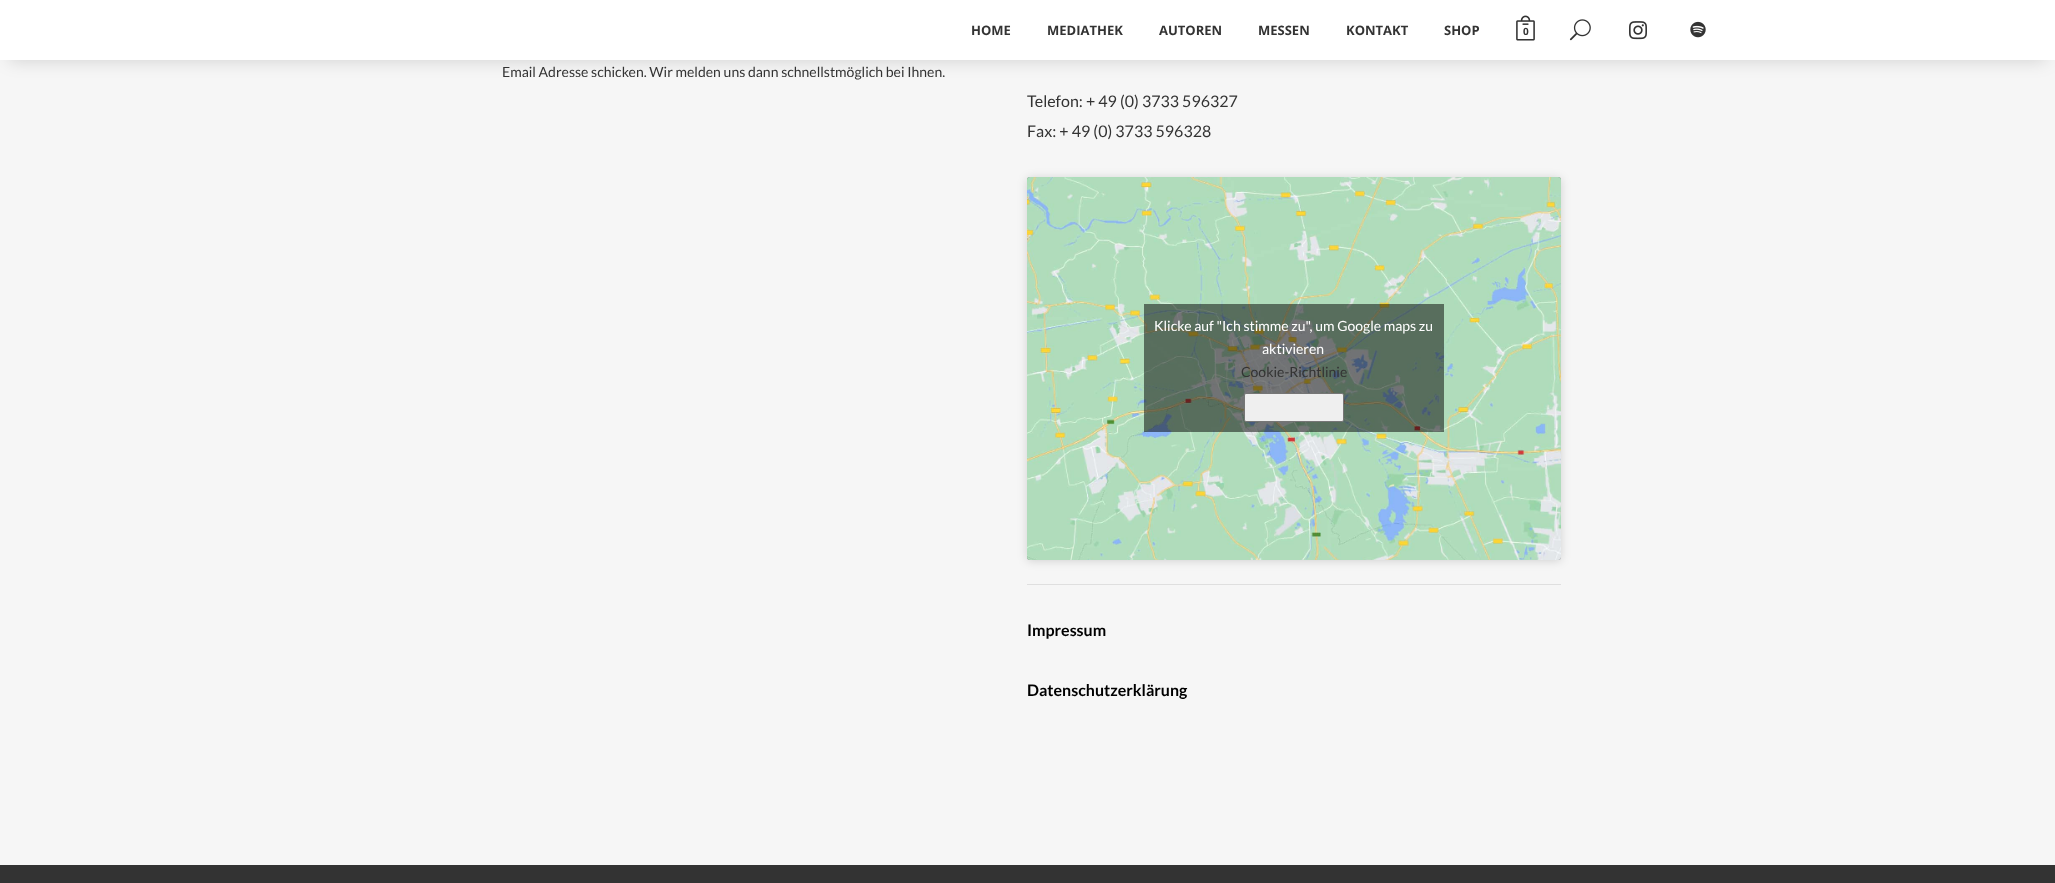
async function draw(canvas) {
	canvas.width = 2055;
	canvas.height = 883;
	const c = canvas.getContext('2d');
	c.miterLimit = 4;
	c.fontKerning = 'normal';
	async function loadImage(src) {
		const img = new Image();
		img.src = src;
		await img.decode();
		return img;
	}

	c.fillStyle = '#333';
	c.fillRect(0, 0, 2055, 883);
	c.fillStyle = '#f6f6f6';
	c.fillRect(0, 60, 2055, 805);
	c.fillStyle = '#00000024';
	c.filter = 'blur(8.5px)';
	c.beginPath();
	c.rect(9, 19, 2037, 42);
	c.fill();
	c.filter = 'none';
	c.fillStyle = '#fff';
	c.fillRect(0, 0, 2055, 60);
	c.font = 'bold 13px Open Sans';
	c.fillStyle = '#333';
	for (const [text, x, y] of [
		['HOME', 971, 35],
		['MEDIATHEK', 1047, 35],
		['AUTOREN', 1159, 35],
		['MESSEN', 1258, 35],
		['KONTAKT', 1346, 35],
		['SHOP', 1444, 35],
	]) {
		c.fillText(text, x, y);
	}
	c.drawImage(await loadImage('img1.png'), 1516, 15, 19, 26);
	c.font = 'bold 10px Open Sans';
	c.fillText('0', 1523, 35);
	c.drawImage(await loadImage('img2.png'), 1569, 19, 22, 22);
	c.drawImage(await loadImage('img3.png'), 1629, 21, 18, 19);
	c.drawImage(await loadImage('img4.png'), 1690, 21, 16, 17);
	c.font = '14px Lato';
	c.fillText('Email Adresse schicken. Wir melden uns dann schnellstmöglich bei Ihnen.', 502, 77);
	c.font = '16px Lato';
	c.fillText('Telefon: + 49 (0) 3733 596327', 1027, 107);
	c.fillText('Fax: + 49 (0) 3733 596328', 1027, 137);
	c.fillStyle = '#00000026';
	c.filter = 'blur(5px)';
	c.beginPath();
	c.roundRect(1027, 178, 534, 383, 3);
	c.fill();
	c.filter = 'none';
	c.fillStyle = '#00000080';
	c.filter = 'blur(0.5px)';
	c.beginPath();
	c.roundRect(1027, 177, 534, 383, 3);
	c.fill();
	c.filter = 'none';
	c.drawImage(await loadImage('img5.png'), 1027, 177, 534, 383);
	c.fillRect(1144, 304, 300, 128);
	c.font = '14px Lato';
	c.fillStyle = '#fff';
	c.fillText('Klicke auf "Ich stimme zu", um Google maps zu', 1154, 331);
	c.fillText('aktivieren', 1262, 354);
	c.fillStyle = '#333';
	c.fillText('Cookie-Richtlinie', 1241, 377);
	c.fillStyle = '#efefef';
	c.beginPath();
	c.roundRect(1244.5, 393.5, 99, 28, 1.5);
	c.fill();
	c.strokeStyle = '#767676';
	c.stroke();
	c.fillStyle = '#dfdfdf';
	c.fillRect(1027, 584, 534, 1);
	c.font = 'bold 16px Lato';
	c.fillStyle = '#000';
	c.fillText('Impressum', 1027, 636);
	c.fillText('Datenschutzerklärung', 1027, 696);
}

draw(document.querySelector('canvas'));
